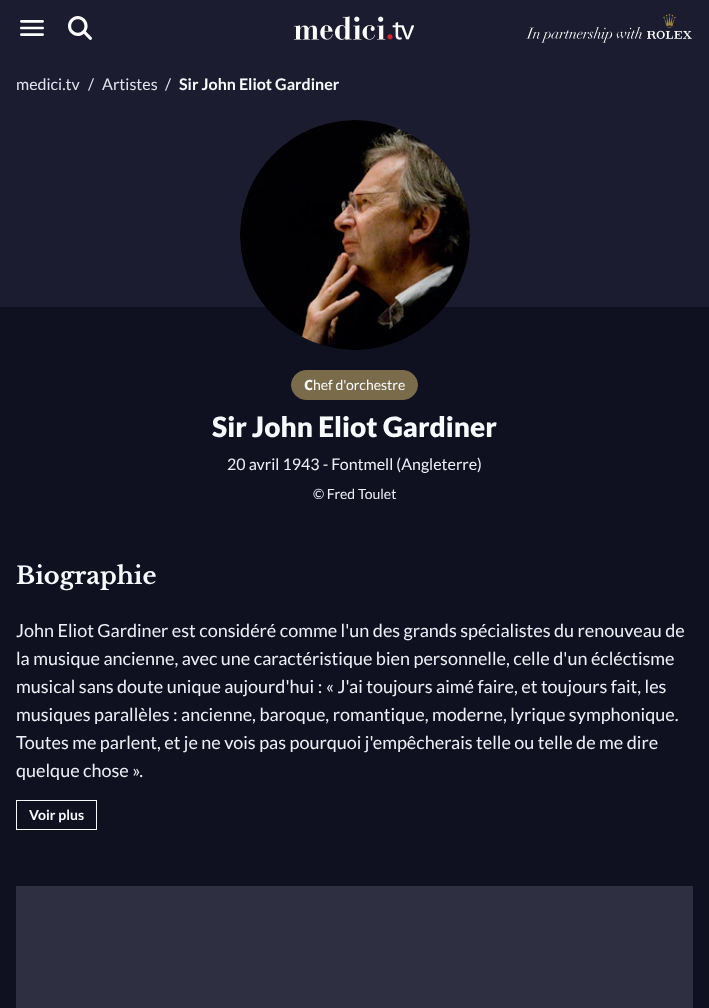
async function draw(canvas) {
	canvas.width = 709;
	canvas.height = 1008;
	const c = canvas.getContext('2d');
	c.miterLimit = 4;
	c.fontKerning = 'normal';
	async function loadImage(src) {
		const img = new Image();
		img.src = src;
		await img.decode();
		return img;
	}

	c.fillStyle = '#0f1121';
	c.fillRect(0, 0, 709, 1008);
	c.fillStyle = '#1b1c2f';
	c.fillRect(0, 0, 709, 307);
	c.drawImage(await loadImage('img1.png'), 20, 20, 24, 16);
	c.drawImage(await loadImage('img2.png'), 68, 16, 24, 24);
	c.drawImage(await loadImage('img3.png'), 294, 16, 120, 24);
	c.drawImage(await loadImage('img4.png'), 526, 14, 166, 29);
	c.font = '16px Lato';
	c.fillStyle = '#e1e4ee';
	for (const [text, x, y] of [
		['medici.tv', 16, 90],
		['/', 88, 90],
		['Artistes', 102, 90],
		['/', 165, 90],
	]) {
		c.fillText(text, x, y);
	}
	c.font = 'bold 16px Lato';
	c.fillStyle = '#f8fafe';
	c.fillText('Sir John Eliot Gardiner', 179, 90);
	c.drawImage(await loadImage('img5.png'), 240, 120, 230, 230);
	c.fillStyle = '#7a6b4a';
	c.beginPath();
	c.roundRect(291.5, 370.5, 126, 29, 14.5);
	c.fill();
	c.strokeStyle = '#7a6b4a';
	c.stroke();
	c.font = '800 14px Noto Sans';
	c.fillStyle = '#f8fafe';
	c.fillText('C', 304, 390);
	c.font = '14px Lato';
	c.fillText('hef d\'orchestre', 313, 390);
	c.font = '900 28px Lato';
	c.fillText('Sir John Eliot Gardiner', 212, 437);
	c.font = '16px Lato';
	c.fillStyle = '#eef0f6';
	c.fillText('20 avril 1943 - Fontmell (Angleterre)', 227, 470);
	c.font = '14px Lato';
	c.fillText('© Fred Toulet', 313, 499);
	c.font = 'bold 24px Libre Baskerville';
	c.fillStyle = '#f8fafe';
	c.fillText('Biographie', 16, 584);
	c.font = '18px Lato';
	c.fillStyle = '#eef0f6';
	for (const [text, x, y] of [
		['John Eliot Gardiner est considéré comme l\'un des grands spécialistes du renouveau de', 16, 637],
		['la musique ancienne, avec une caractéristique bien personnelle, celle d\'un écléctisme', 16, 665],
		['musical sans doute unique aujourd\'hui : « J\'ai toujours aimé faire, et toujours fait, les', 16, 693],
		['musiques parallèles : ancienne, baroque, romantique, moderne, lyrique symphonique.', 16, 721],
		['Toutes me parlent, et je ne vois pas pourquoi j\'empêcherais telle ou telle de me dire', 16, 749],
		['quelque chose ».', 16, 777],
	]) {
		c.fillText(text, x, y);
	}
	c.strokeStyle = '#f8fafe';
	c.strokeRect(16.5, 800.5, 80, 29);
	c.font = 'bold 14px Lato';
	c.fillStyle = '#f8fafe';
	c.fillText('Voir plus', 29, 820);
	c.fillStyle = '#2e2f40';
	c.fillRect(16, 886, 677, 122);
}

draw(document.querySelector('canvas'));
